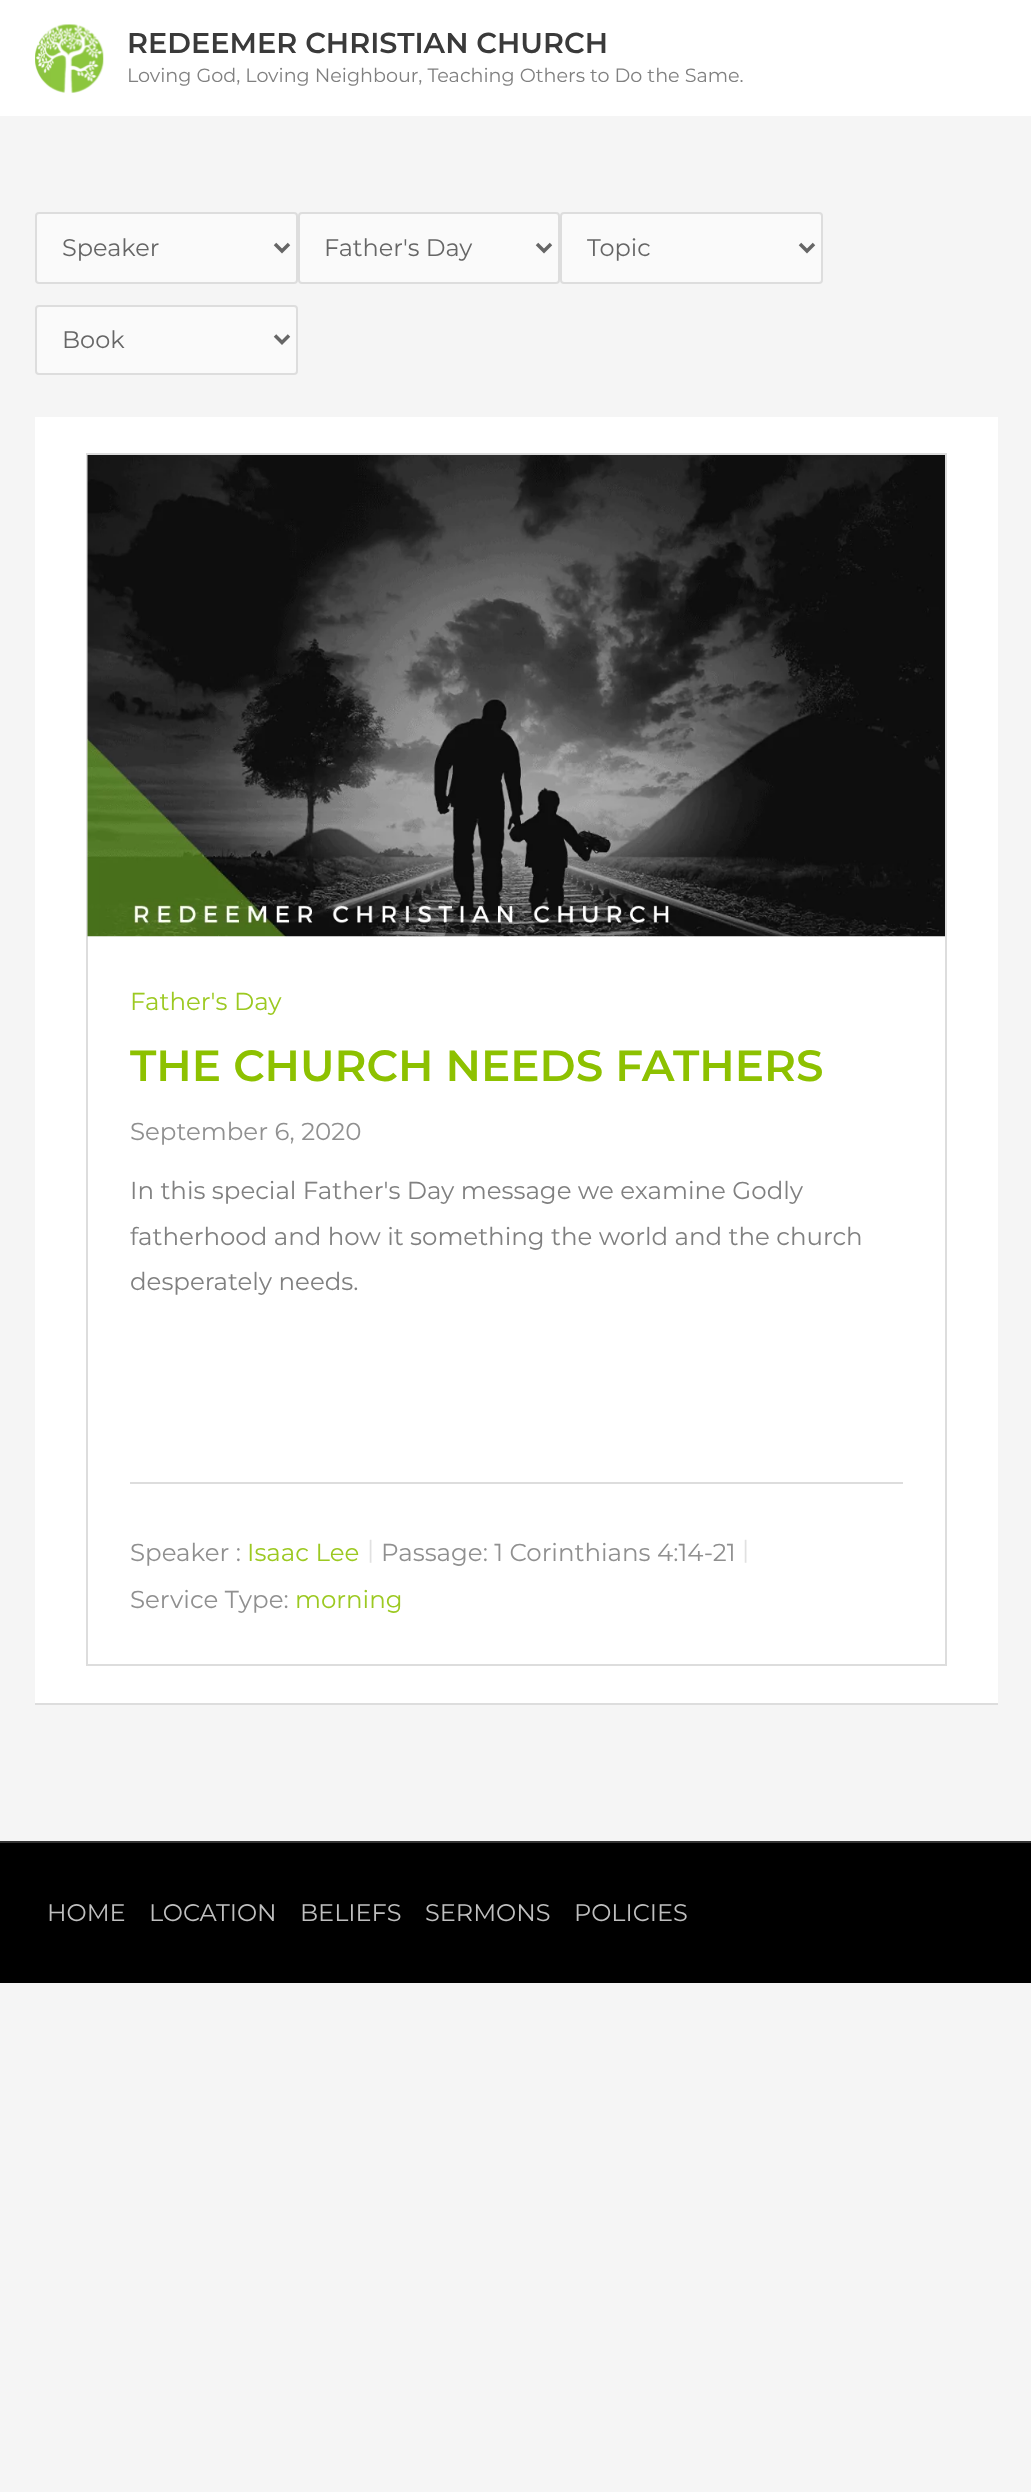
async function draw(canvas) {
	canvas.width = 1031;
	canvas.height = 2492;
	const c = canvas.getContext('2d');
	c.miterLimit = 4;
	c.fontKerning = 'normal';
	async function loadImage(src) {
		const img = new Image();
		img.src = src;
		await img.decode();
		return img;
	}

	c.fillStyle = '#f5f5f5';
	c.fillRect(0, 0, 1031, 2492);
	c.fillStyle = '#fff';
	c.fillRect(0, 0, 1031, 116);
	c.drawImage(await loadImage('img1.png'), 35, 24, 69, 69);
	c.font = '600 28.75px Montserrat';
	c.fillStyle = '#3a3a3a';
	c.fillText('REDEEMER CHRISTIAN CHURCH', 127, 53);
	c.font = '19.15px Montserrat';
	c.fillStyle = '#808080';
	c.fillText('Loving God, Loving Neighbour, Teaching Others to Do the Same.', 127, 82);
	c.fillStyle = '#fafafa';
	c.beginPath();
	c.roundRect(36, 213, 261, 70, 3);
	c.fill();
	c.strokeStyle = '#ddd';
	c.lineWidth = 2;
	c.stroke();
	c.beginPath();
	c.moveTo(275, 244);
	c.lineTo(282, 251);
	c.lineTo(289, 244);
	c.strokeStyle = '#666';
	c.lineWidth = 3.5;
	c.stroke();
	c.font = '24px Montserrat';
	c.fillStyle = '#666';
	c.fillText('Speaker', 62, 256);
	c.fillStyle = '#fafafa';
	c.beginPath();
	c.roundRect(299, 213, 260, 70, 3);
	c.fill();
	c.strokeStyle = '#ddd';
	c.lineWidth = 2;
	c.stroke();
	c.beginPath();
	c.moveTo(537, 244);
	c.lineTo(544, 251);
	c.lineTo(551, 244);
	c.strokeStyle = '#666';
	c.lineWidth = 3.5;
	c.stroke();
	c.fillStyle = '#666';
	c.fillText('Father\'s Day', 324, 256);
	c.fillStyle = '#fafafa';
	c.beginPath();
	c.roundRect(561, 213, 261, 70, 3);
	c.fill();
	c.strokeStyle = '#ddd';
	c.lineWidth = 2;
	c.stroke();
	c.beginPath();
	c.moveTo(800, 244);
	c.lineTo(807, 251);
	c.lineTo(814, 244);
	c.strokeStyle = '#666';
	c.lineWidth = 3.5;
	c.stroke();
	c.fillStyle = '#666';
	c.fillText('Topic', 587, 256);
	c.fillStyle = '#fafafa';
	c.beginPath();
	c.roundRect(36, 306, 261, 68, 3);
	c.fill();
	c.strokeStyle = '#ddd';
	c.lineWidth = 2;
	c.stroke();
	c.beginPath();
	c.moveTo(275, 335.5);
	c.lineTo(282, 342.5);
	c.lineTo(289, 335.5);
	c.strokeStyle = '#666';
	c.lineWidth = 3.5;
	c.stroke();
	c.fillStyle = '#666';
	c.fillText('Book', 62, 348);
	c.fillStyle = '#fff';
	c.fillRect(35, 417, 963, 1286);
	c.fillStyle = '#ddd';
	c.fillRect(35, 1703, 963, 2);
	c.strokeStyle = '#ddd';
	c.lineWidth = 2;
	c.strokeRect(87, 454, 859, 1211);
	c.drawImage(await loadImage('img2.png'), 87, 455, 858, 482);
	c.font = '24.5px Montserrat';
	c.fillStyle = '#9cc921';
	c.fillText('Father\'s Day', 130, 1010);
	c.font = '600 43.75px Montserrat';
	c.fillStyle = '#8dc100';
	c.fillText('THE CHURCH NEEDS FATHERS', 130, 1081);
	c.font = '24.5px Montserrat';
	c.fillStyle = '#909090';
	c.fillText('September 6, 2020', 130, 1140);
	c.fillStyle = '#808080';
	for (const [text, x, y] of [
		['In this special Father\'s Day message we examine Godly', 130, 1199],
		['fatherhood and how it something the world and the church', 130, 1245],
		['desperately needs.', 130, 1290],
	]) {
		c.fillText(text, x, y);
	}
	c.fillStyle = '#ddd';
	c.fillRect(130, 1482, 773, 2);
	c.fillStyle = '#909090';
	c.fillText('Speaker :', 130, 1561);
	c.fillStyle = '#9cc921';
	c.fillText('Isaac Lee', 247, 1561);
	c.fillStyle = '#e1e1e1';
	c.fillText('|', 367, 1558);
	c.fillStyle = '#909090';
	c.fillText('Passage: 1 Corinthians 4:14-21', 381, 1561);
	c.fillStyle = '#e1e1e1';
	c.fillText('|', 742, 1558);
	c.fillStyle = '#909090';
	c.fillText('Service Type:', 130, 1608);
	c.fillStyle = '#9cc921';
	c.fillText('morning', 295, 1608);
	c.fillStyle = '#333';
	c.fillRect(0, 1841, 1031, 2);
	c.fillStyle = '#000';
	c.fillRect(0, 1843, 1031, 140);
	c.font = '24px Montserrat';
	c.fillStyle = '#bfbfbf';
	for (const [text, x, y] of [
		['HOME', 47, 1921],
		['LOCATION', 149, 1921],
		['BELIEFS', 300, 1921],
		['SERMONS', 425, 1921],
		['POLICIES', 574, 1921],
	]) {
		c.fillText(text, x, y);
	}
}

draw(document.querySelector('canvas'));
